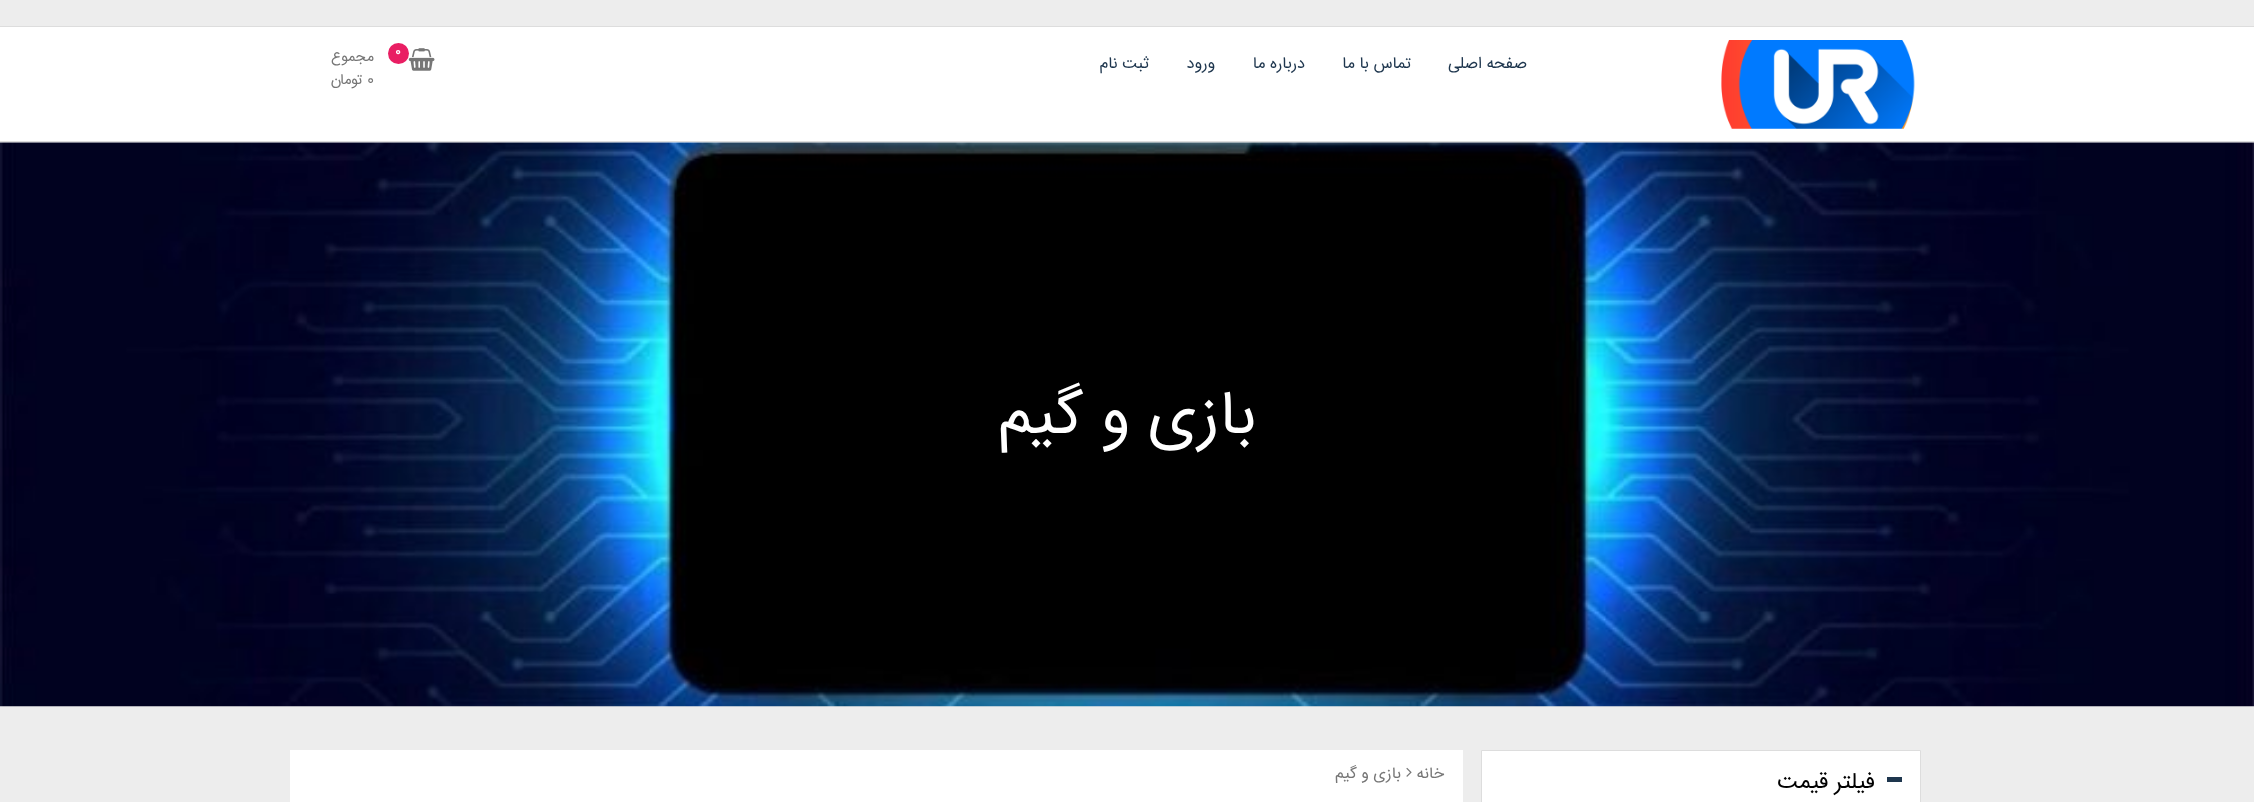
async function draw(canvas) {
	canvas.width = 2254;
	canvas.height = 802;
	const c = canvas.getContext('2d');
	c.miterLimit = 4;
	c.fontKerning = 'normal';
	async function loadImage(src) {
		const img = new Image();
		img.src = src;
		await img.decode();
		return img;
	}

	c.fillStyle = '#ededed';
	c.fillRect(0, 0, 2254, 802);
	for (const [x, y, w, h, color] of [
		[0, 27, 2254, 116, '#fff'],
		[0, 26, 2254, 1, '#ddd'],
		[0, 141, 2254, 1, '#ddd'],
	]) {
		c.fillStyle = color;
		c.fillRect(x, y, w, h);
	}
	c.drawImage(await loadImage('img1.png'), 1721, 40, 194, 89);
	c.direction = 'rtl';
	c.font = '16.25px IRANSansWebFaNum';
	c.fillStyle = '#1e364e';
	for (const [text, x, y] of [
		['صفحه اصلی', 1527, 68],
		['تماس با ما', 1411, 68],
		['درباره ما', 1305, 68],
		['ورود', 1215, 68],
		['ثبت نام', 1149, 68],
	]) {
		c.fillText(text, x, y);
	}
	c.drawImage(await loadImage('img2.png'), 408, 48, 27, 23);
	c.fillStyle = '#e91e63';
	c.beginPath();
	c.arc(398.5, 53.5, 10.5, 0, 2 * Math.PI);
	c.fill();
	c.direction = 'ltr';
	c.font = 'bold 12px IRANSansWebFaNum';
	c.fillStyle = '#fff';
	c.fillText('0', 395, 55);
	c.direction = 'rtl';
	c.font = '15px IRANSansWebFaNum';
	c.fillStyle = '#767676';
	c.fillText('مجموع', 374, 61);
	c.direction = 'ltr';
	c.fillText('0', 367, 84);
	c.direction = 'rtl';
	c.fillText('تومان', 363, 84);
	c.drawImage(await loadImage('img3.png'), 0, 142, 2254, 565);
	c.font = '62.5px IRANSansWebFaNum';
	c.fillStyle = '#fff';
	c.fillText('بازی و گیم', 1256, 433);
	c.beginPath();
	c.rect(1481.5, 750.5, 439, 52);
	c.fill();
	c.strokeStyle = '#ddd';
	c.stroke();
	c.fillStyle = '#1e364e';
	c.fillRect(1887, 777, 15, 5);
	c.font = '22.5px IRANSansWebFaNum';
	c.fillStyle = '#000';
	c.fillText('فیلتر قیمت', 1875, 788);
	c.fillStyle = '#fff';
	c.fillRect(290, 750, 1173, 52);
	c.font = '16px IRANSansWebFaNum';
	c.fillStyle = '#767676';
	c.fillText('خانه', 1444, 778);
	c.drawImage(await loadImage('img4.png'), 1406, 767, 6, 10);
	c.fillText('بازی و گیم', 1401, 778);
}

draw(document.querySelector('canvas'));
